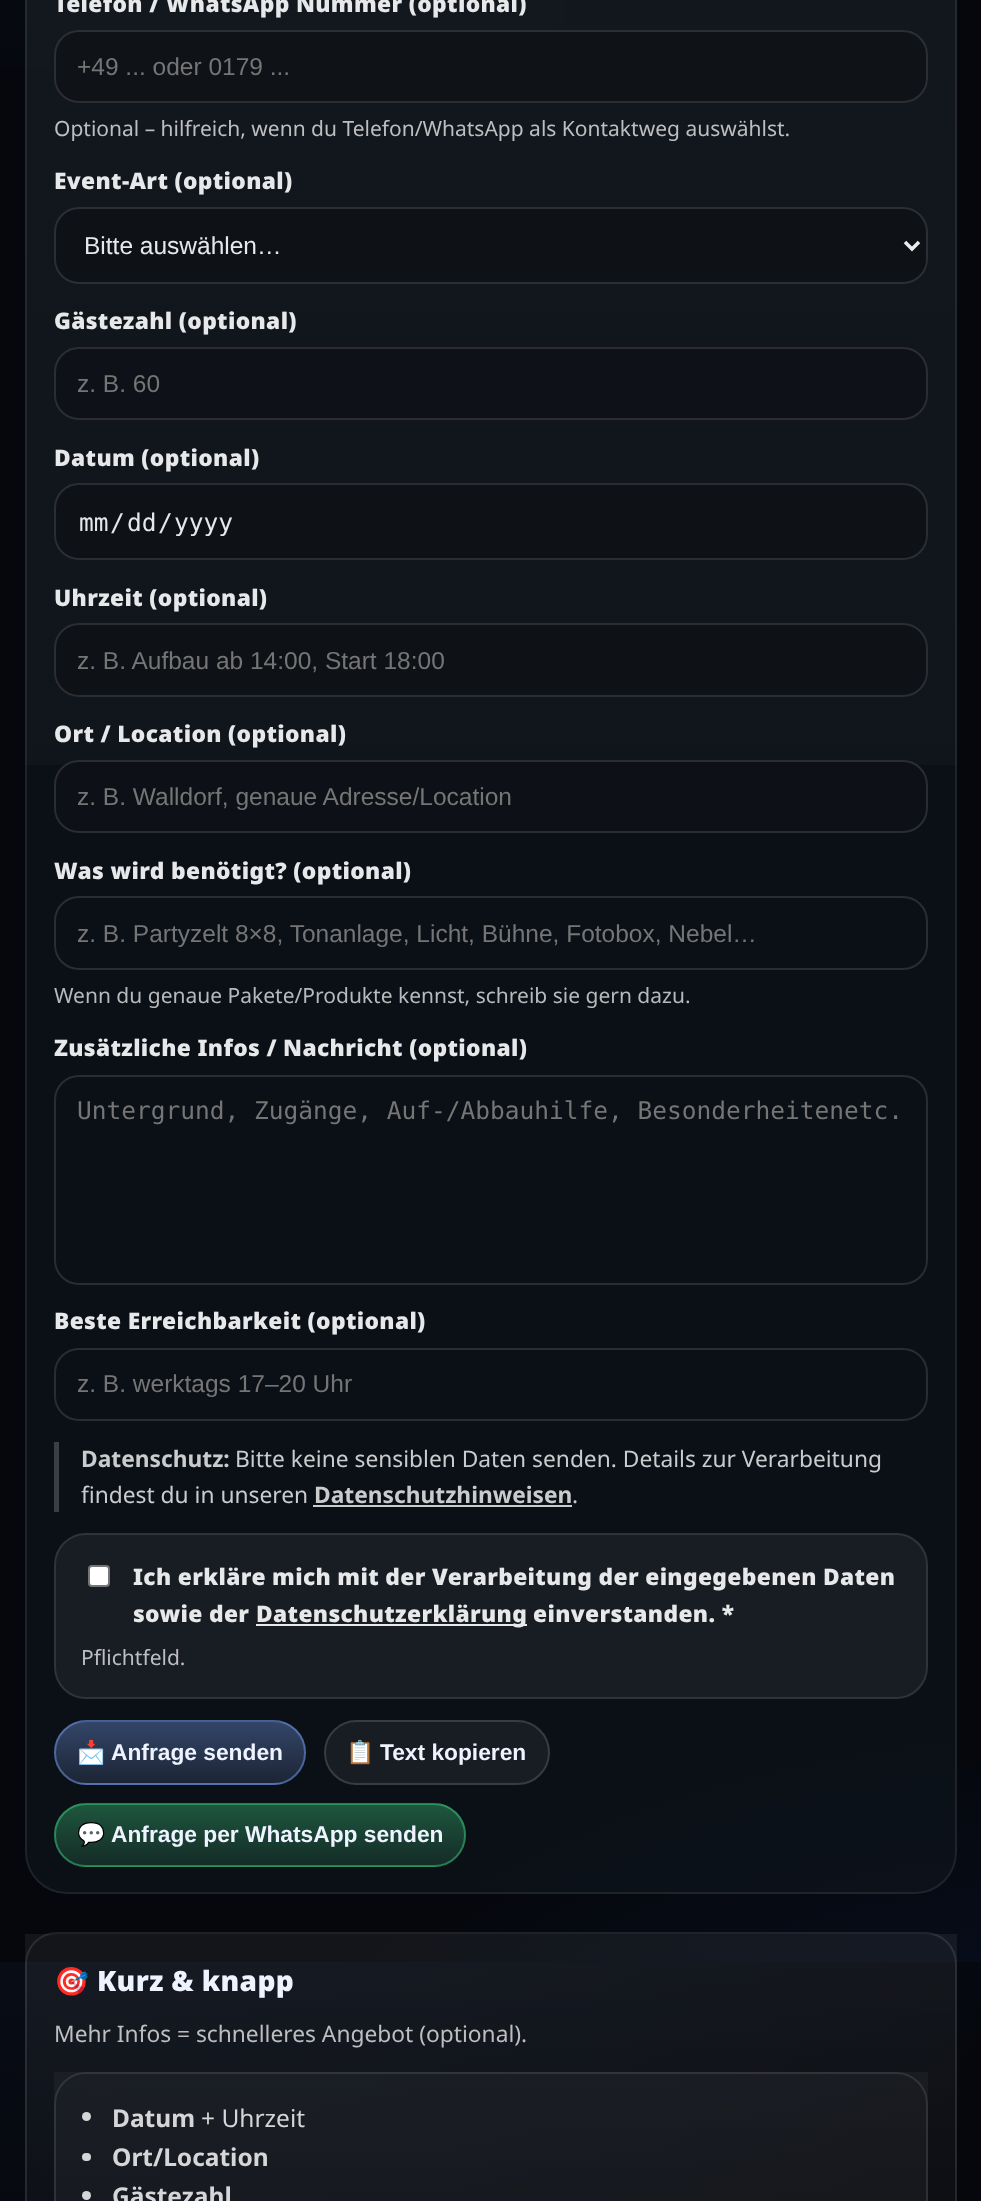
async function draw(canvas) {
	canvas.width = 981;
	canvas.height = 2201;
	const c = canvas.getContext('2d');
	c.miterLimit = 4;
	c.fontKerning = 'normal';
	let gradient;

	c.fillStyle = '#fff';
	c.fillRect(0, 0, 981, 2201);
	gradient = c.createRadialGradient(1080, 3431.43, 0, 1080, 3431.43, 1750);
	gradient.addColorStop(0, '#0a1730');
	gradient.addColorStop(0.55, '#05070c');
	c.fillStyle = gradient;
	c.beginPath();
	c.rect(0, 0, 981, 1962);
	c.save();
	c.clip();
	c.scale(1, 1225 / 1750);
	c.fillRect(0, 0, 981, 3145);
	c.restore();
	gradient = c.createRadialGradient(98, -1020, 0, 98, -1020, 2100);
	gradient.addColorStop(0, '#0b1220');
	gradient.addColorStop(0.6, '#0b122000');
	c.fillStyle = gradient;
	c.beginPath();
	c.rect(0, 0, 566, 68);
	c.save();
	c.clip();
	c.scale(1, 1400 / 2100);
	c.fillRect(0, 0, 981, 3302);
	c.restore();
	gradient = c.createRadialGradient(98, 2281.5, 0, 98, 2281.5, 2100);
	gradient.addColorStop(0, '#0b1220');
	gradient.addColorStop(0.6, '#05070c');
	c.fillStyle = gradient;
	c.beginPath();
	c.rect(0, 1962, 981, 239);
	c.save();
	c.clip();
	c.scale(1, 1400 / 2100);
	c.fillRect(0, 0, 981, 3302);
	c.restore();
	c.fillStyle = '#10161e9e';
	c.beginPath();
	c.roundRect(25, -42, 932, 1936, 42);
	c.fill();
	gradient = c.createLinearGradient(491, -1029, 491, 1892);
	gradient.addColorStop(0, '#ffffff0a');
	gradient.addColorStop(1, '#ffffff03');
	c.fillStyle = gradient;
	c.fillRect(25, 0, 932, 765);
	c.beginPath();
	c.roundRect(26, -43, 930, 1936, 41);
	c.strokeStyle = '#ffffff14';
	c.lineWidth = 2;
	c.stroke();
	c.letterSpacing = '0.35px';
	c.font = '900 22.75px Noto Sans';
	c.fillStyle = '#e7e8e9';
	c.fillText('Telefon / WhatsApp Nummer (optional)', 54, 12);
	c.fillStyle = '#0f1217';
	c.beginPath();
	c.roundRect(54, 30, 874, 73, 25);
	c.fill();
	c.beginPath();
	c.roundRect(55, 31, 872, 71, 24);
	c.strokeStyle = '#ffffff1f';
	c.stroke();
	c.letterSpacing = '0px';
	c.font = '24.5px Liberation Sans';
	c.fillStyle = '#757575';
	c.fillText('+49 ... oder 0179 ...', 77, 75);
	c.font = '21px Noto Sans';
	c.fillStyle = '#bdbec0';
	c.fillText('Optional – hilfreich, wenn du Telefon/WhatsApp als Kontaktweg auswählst.', 54, 136);
	c.letterSpacing = '0.35px';
	c.font = '900 22.75px Noto Sans';
	c.fillStyle = '#e7e8e9';
	c.fillText('Event-Art (optional)', 54, 189);
	c.fillStyle = '#0e1217';
	c.beginPath();
	c.roundRect(54, 207, 874, 77, 25);
	c.fill();
	c.beginPath();
	c.roundRect(55, 208, 872, 75, 24);
	c.stroke();
	c.beginPath();
	c.moveTo(905, 242);
	c.lineTo(912, 249);
	c.lineTo(919, 242);
	c.strokeStyle = '#ececec';
	c.lineWidth = 3.5;
	c.stroke();
	c.letterSpacing = '0px';
	c.font = '24.5px Liberation Sans';
	c.fillStyle = '#e7e8e9';
	c.fillText('Bitte auswählen…', 84, 254);
	c.letterSpacing = '0.35px';
	c.font = '900 22.75px Noto Sans';
	c.fillText('Gästezahl (optional)', 54, 329);
	c.fillStyle = '#0e1117';
	c.beginPath();
	c.roundRect(54, 347, 874, 73, 25);
	c.fill();
	c.beginPath();
	c.roundRect(55, 348, 872, 71, 24);
	c.strokeStyle = '#ffffff1f';
	c.lineWidth = 2;
	c.stroke();
	c.letterSpacing = '0px';
	c.font = '24.5px Liberation Sans';
	c.fillStyle = '#757575';
	c.fillText('z. B. 60', 77, 392);
	c.letterSpacing = '0.35px';
	c.font = '900 22.75px Noto Sans';
	c.fillStyle = '#e7e8e9';
	c.fillText('Datum (optional)', 54, 466);
	c.fillStyle = '#0e1116';
	c.beginPath();
	c.roundRect(54, 483, 874, 77, 25);
	c.fill();
	c.beginPath();
	c.roundRect(55, 484, 872, 75, 24);
	c.stroke();
	c.letterSpacing = '0px';
	c.font = '24.5px DejaVu Sans Mono';
	c.fillStyle = '#e7e8e9';
	for (const [text, x, y] of [
		['mm', 79, 531],
		['/', 110, 531],
		['dd', 127, 531],
		['/', 158, 531],
		['yyyy', 174, 531],
	]) {
		c.fillText(text, x, y);
	}
	c.letterSpacing = '0.35px';
	c.font = '900 22.75px Noto Sans';
	c.fillText('Uhrzeit (optional)', 54, 606);
	c.fillStyle = '#0e1116';
	c.beginPath();
	c.roundRect(54, 623, 874, 74, 25);
	c.fill();
	c.beginPath();
	c.roundRect(55, 624, 872, 72, 24);
	c.stroke();
	c.letterSpacing = '0px';
	c.font = '24.5px Liberation Sans';
	c.fillStyle = '#757575';
	c.fillText('z. B. Aufbau ab 14:00, Start 18:00', 77, 669);
	c.letterSpacing = '0.35px';
	c.font = '900 22.75px Noto Sans';
	c.fillStyle = '#e7e8e9';
	c.fillText('Ort / Location (optional)', 54, 742);
	c.fillStyle = '#0d1016';
	c.beginPath();
	c.roundRect(54, 760, 874, 73, 25);
	c.fill();
	c.beginPath();
	c.roundRect(55, 761, 872, 71, 24);
	c.stroke();
	c.letterSpacing = '0px';
	c.font = '24.5px Liberation Sans';
	c.fillStyle = '#757575';
	c.fillText('z. B. Walldorf, genaue Adresse/Location', 77, 805);
	c.letterSpacing = '0.35px';
	c.font = '900 22.75px Noto Sans';
	c.fillStyle = '#e7e8e9';
	c.fillText('Was wird benötigt? (optional)', 54, 879);
	c.beginPath();
	c.roundRect(55, 897, 872, 72, 24);
	c.strokeStyle = '#2a2d32';
	c.stroke();
	c.letterSpacing = '0px';
	c.font = '24.5px Liberation Sans';
	c.fillStyle = '#757575';
	c.fillText('z. B. Partyzelt 8×8, Tonanlage, Licht, Bühne, Fotobox, Nebel…', 77, 942);
	c.font = '21px Noto Sans';
	c.fillStyle = '#b7b9bb';
	c.fillText('Wenn du genaue Pakete/Produkte kennst, schreib sie gern dazu.', 54, 1003);
	c.letterSpacing = '0.35px';
	c.font = '900 22.75px Noto Sans';
	c.fillStyle = '#e7e8e9';
	c.fillText('Zusätzliche Infos / Nachricht (optional)', 54, 1056);
	c.beginPath();
	c.roundRect(55, 1076, 872, 208, 24);
	c.strokeStyle = '#ffffff1f';
	c.stroke();
	c.letterSpacing = '0px';
	c.font = '24.5px DejaVu Sans Mono';
	c.fillStyle = '#757575';
	c.fillText('Untergrund, Zugänge, Auf-/Abbauhilfe, Besonderheitenetc.', 77, 1119);
	c.letterSpacing = '0.35px';
	c.font = '900 22.75px Noto Sans';
	c.fillStyle = '#e7e8e9';
	c.fillText('Beste Erreichbarkeit (optional)', 54, 1329);
	c.beginPath();
	c.roundRect(55, 1349, 872, 71, 24);
	c.stroke();
	c.letterSpacing = '0px';
	c.font = '24.5px Liberation Sans';
	c.fillStyle = '#757575';
	c.fillText('z. B. werktags 17–20 Uhr', 77, 1392);
	c.fillStyle = '#3b3e44';
	c.fillRect(54, 1442, 5, 70);
	c.font = 'bold 22.75px Noto Sans';
	c.fillStyle = '#cacbcd';
	c.fillText('Datenschutz:', 81, 1467);
	c.font = '22.75px Noto Sans';
	c.fillText('Bitte keine sensiblen Daten senden. Details zur Verarbeitung', 235, 1467);
	c.fillText('findest du in unseren', 81, 1503);
	c.font = 'bold 22.75px Noto Sans';
	c.fillText('Datenschutzhinweisen', 314, 1503);
	c.fillRect(313, 1505, 259, 2);
	c.font = '22.75px Noto Sans';
	c.fillText('.', 572, 1503);
	c.fillStyle = '#181d23';
	c.beginPath();
	c.roundRect(54, 1533, 874, 166, 32);
	c.fill();
	c.beginPath();
	c.roundRect(55, 1534, 872, 164, 31);
	c.strokeStyle = '#ffffff1a';
	c.stroke();
	c.fillStyle = '#fff';
	c.beginPath();
	c.roundRect(89, 1566, 20, 20, 3);
	c.fill();
	c.strokeStyle = '#767676';
	c.stroke();
	c.letterSpacing = '0.35px';
	c.font = '900 22.75px Noto Sans';
	c.fillStyle = '#e7e8e9';
	c.fillText('Ich erkläre mich mit der Verarbeitung der eingegebenen Daten', 133, 1585);
	c.fillText('sowie der', 133, 1622);
	c.fillStyle = '#e8e8e9';
	c.fillRect(256, 1624, 271, 2);
	c.fillStyle = '#e7e8e9';
	c.fillText('Datenschutzerklärung', 256, 1622);
	c.fillText('einverstanden. *', 533, 1622);
	c.letterSpacing = '0px';
	c.font = '21px Noto Sans';
	c.fillStyle = '#bdbec0';
	c.fillText('Pflichtfeld.', 81, 1665);
	c.save();
	c.beginPath();
	c.roundRect(54, 1720, 252, 65, 32.5);
	c.clip();
	gradient = c.createLinearGradient(180, 1661, 180, 1722);
	gradient.addColorStop(0, '#334568');
	gradient.addColorStop(1, '#1c2535');
	c.fillStyle = gradient;
	c.fillRect(75, 1720, 210, 2);
	gradient = c.createLinearGradient(180, 1722, 180, 1783);
	gradient.addColorStop(0, '#334568');
	gradient.addColorStop(1, '#1c2535');
	c.fillStyle = gradient;
	c.fillRect(54, 1722, 252, 61);
	gradient = c.createLinearGradient(180, 1783, 180, 1845);
	gradient.addColorStop(0, '#334568');
	gradient.addColorStop(1, '#1c2535');
	c.fillStyle = gradient;
	c.fillRect(75, 1783, 210, 2);
	c.restore();
	c.beginPath();
	c.roundRect(55, 1721, 250, 63, 31.5);
	c.strokeStyle = '#7aa7ff73';
	c.stroke();
	c.font = 'bold 22.75px Noto Color Emoji';
	c.fillStyle = '#eef3ff';
	c.fillText('📩', 77, 1760);
	c.font = 'bold 22.75px Liberation Sans';
	c.fillText('Anfrage senden', 111, 1760);
	c.fillStyle = '#181d23';
	c.beginPath();
	c.roundRect(324, 1720, 226, 65, 32.5);
	c.fill();
	c.beginPath();
	c.roundRect(325, 1721, 224, 63, 31.5);
	c.strokeStyle = '#ffffff24';
	c.stroke();
	c.font = 'bold 22.75px Noto Color Emoji';
	c.fillStyle = '#eef3ff';
	c.fillText('📋', 346, 1760);
	c.font = 'bold 22.75px Liberation Sans';
	c.fillText('Text kopieren', 380, 1760);
	c.save();
	c.beginPath();
	c.roundRect(54, 1803, 412, 64, 32);
	c.clip();
	gradient = c.createLinearGradient(260, 1743, 260, 1804);
	gradient.addColorStop(0, '#1e573e');
	gradient.addColorStop(1, '#142b27');
	c.fillStyle = gradient;
	c.fillRect(78, 1803, 364, 1);
	gradient = c.createLinearGradient(260, 1804, 260, 1866);
	gradient.addColorStop(0, '#1e573e');
	gradient.addColorStop(1, '#142b27');
	c.fillStyle = gradient;
	c.fillRect(54, 1804, 412, 62);
	gradient = c.createLinearGradient(260, 1866, 260, 1927);
	gradient.addColorStop(0, '#1e573e');
	gradient.addColorStop(1, '#142b27');
	c.fillStyle = gradient;
	c.fillRect(78, 1866, 364, 1);
	c.restore();
	c.beginPath();
	c.roundRect(55, 1804, 410, 62, 31);
	c.strokeStyle = '#3ddc8473';
	c.stroke();
	c.font = 'bold 22.75px Noto Color Emoji';
	c.fillText('💬', 77, 1842);
	c.font = 'bold 22.75px Liberation Sans';
	c.fillText('Anfrage per WhatsApp senden', 111, 1842);
	gradient = c.createLinearGradient(491, 1934, 491, 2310);
	gradient.addColorStop(0, '#ffffff0f');
	gradient.addColorStop(1, '#ffffff05');
	c.fillStyle = gradient;
	c.fillRect(25, 1934, 932, 267);
	c.beginPath();
	c.roundRect(26, 1933, 930, 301, 31);
	c.strokeStyle = '#ffffff1a';
	c.stroke();
	c.letterSpacing = '0.35px';
	c.font = 'bold 28px Noto Color Emoji';
	c.fillStyle = '#eef3ff';
	c.fillText('🎯', 54, 1991);
	c.font = '900 28px Noto Sans';
	c.fillText('Kurz & knapp', 97, 1991);
	c.letterSpacing = '0px';
	c.font = '22.75px Noto Sans';
	c.fillStyle = '#bdbec0';
	c.fillText('Mehr Infos = schnelleres Angebot (optional).', 54, 2042);
	c.fillStyle = '#ffffff0a';
	c.fillRect(54, 2072, 874, 129);
	c.beginPath();
	c.roundRect(55, 2073, 872, 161, 31);
	c.stroke();
	c.fillStyle = '#d6d6d8';
	c.beginPath();
	c.arc(86.5, 2116.5, 4.5, 0, 2 * Math.PI);
	c.fill();
	c.font = 'bold 24.5px Noto Sans';
	c.fillText('Datum', 112, 2127);
	c.font = '24.5px Noto Sans';
	c.fillText('+ Uhrzeit', 201, 2127);
	c.fillStyle = '#d5d6d7';
	c.beginPath();
	c.roundRect(82, 2153, 9, 8, 4);
	c.fill();
	c.font = 'bold 24.5px Noto Sans';
	c.fillStyle = '#d6d6d8';
	c.fillText('Ort/Location', 112, 2166);
	c.fillStyle = '#d5d6d7';
	c.beginPath();
	c.arc(86.5, 2195.5, 4.5, 0, 2 * Math.PI);
	c.fill();
	c.fillStyle = '#d6d6d8';
	c.fillText('Gästezahl', 112, 2205);
}

draw(document.querySelector('canvas'));
